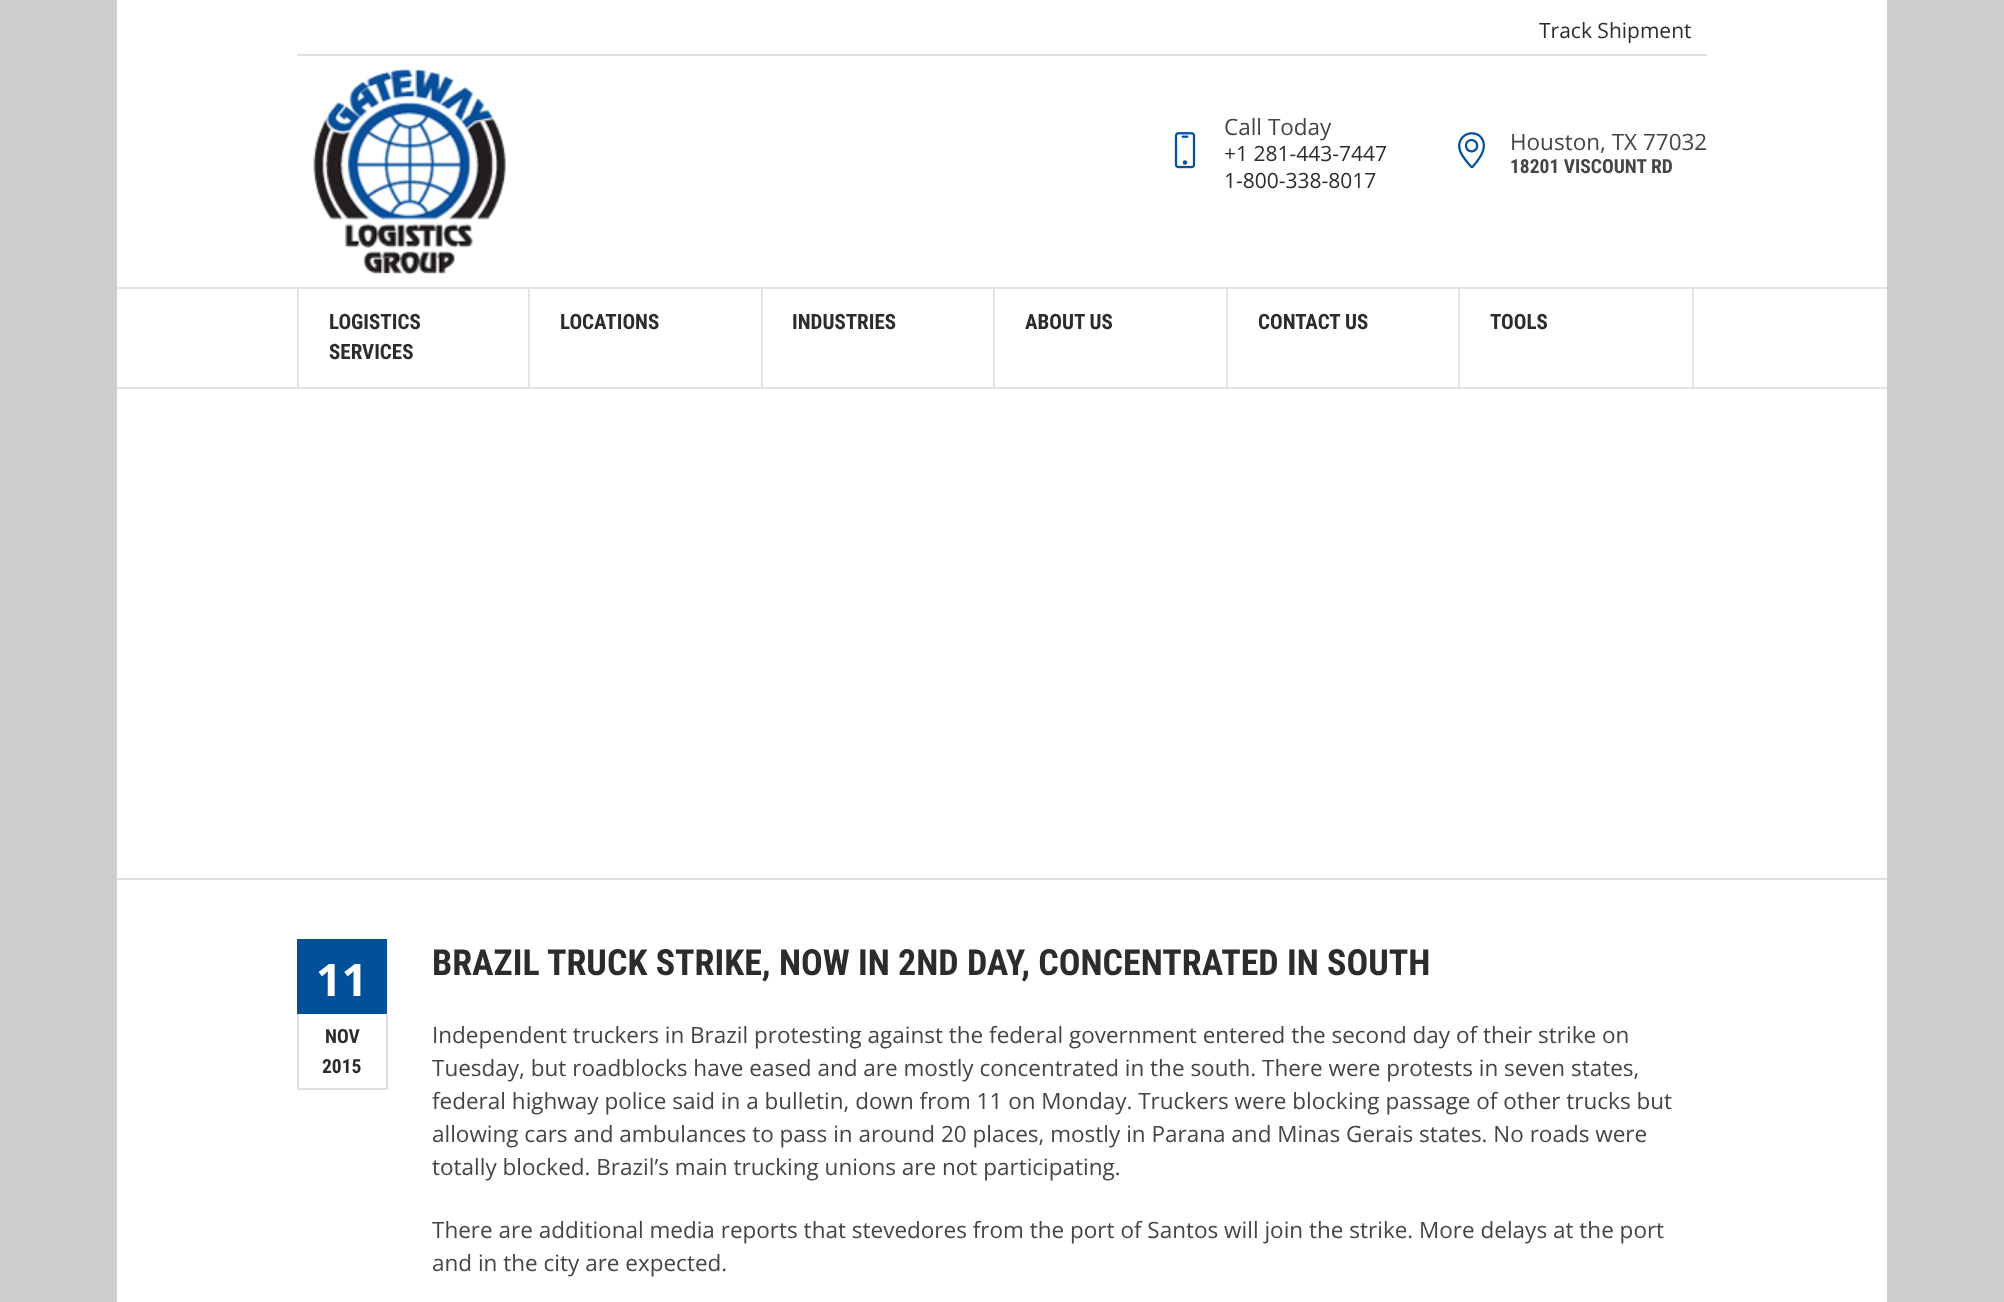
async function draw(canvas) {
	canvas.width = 2004;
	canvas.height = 1302;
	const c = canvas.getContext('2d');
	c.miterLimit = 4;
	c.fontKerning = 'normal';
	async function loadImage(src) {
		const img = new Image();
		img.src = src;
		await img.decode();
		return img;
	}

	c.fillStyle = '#cecece';
	c.fillRect(0, 0, 2004, 1302);
	c.fillStyle = '#fff';
	c.fillRect(117, 0, 1770, 1302);
	c.font = '21px Open Sans';
	c.fillStyle = '#2c2c2c';
	c.fillText('Track Shipment', 1539, 38);
	c.fillStyle = '#e0e0e0';
	c.fillRect(297, 54, 1410, 2);
	c.drawImage(await loadImage('img1.png'), 313, 68, 193, 207);
	c.drawImage(await loadImage('img2.png'), 1174, 132, 22, 37);
	c.font = '22.5px Open Sans';
	c.fillStyle = '#454545';
	c.fillText('Call Today', 1224, 135);
	c.font = '21px Open Sans';
	c.fillStyle = '#2c2c2c';
	c.fillText('+1 281-443-7447', 1224, 161);
	c.fillText('1-800-338-8017', 1224, 188);
	c.drawImage(await loadImage('img3.png'), 1458, 132, 27, 37);
	c.font = '22.5px Open Sans';
	c.fillStyle = '#454545';
	c.fillText('Houston, TX 77032', 1510, 150);
	c.font = 'bold 19.5px Roboto Condensed';
	c.fillText('18201 VISCOUNT RD', 1510, 173);
	for (const [x, y, w, h, color] of [
		[117, 287, 1770, 2, '#e4e4e4'],
		[117, 387, 1770, 2, '#e4e4e4'],
		[528, 287, 2, 102, '#e4e4e4'],
		[297, 287, 2, 102, '#e4e4e4'],
	]) {
		c.fillStyle = color;
		c.fillRect(x, y, w, h);
	}
	c.font = 'bold 21px Roboto Condensed';
	c.fillStyle = '#2c2c2c';
	c.fillText('LOGISTICS', 329, 329);
	c.fillText('SERVICES', 329, 359);
	c.fillStyle = '#e4e4e4';
	c.fillRect(761, 287, 2, 102);
	c.fillStyle = '#2c2c2c';
	c.fillText('LOCATIONS', 560, 329);
	c.fillStyle = '#e4e4e4';
	c.fillRect(993, 287, 2, 102);
	c.fillStyle = '#2c2c2c';
	c.fillText('INDUSTRIES', 792, 329);
	c.fillStyle = '#e4e4e4';
	c.fillRect(1226, 287, 2, 102);
	c.fillStyle = '#2c2c2c';
	c.fillText('ABOUT US', 1025, 329);
	c.fillStyle = '#e4e4e4';
	c.fillRect(1458, 287, 2, 102);
	c.fillStyle = '#2c2c2c';
	c.fillText('CONTACT US', 1258, 329);
	c.fillStyle = '#e4e4e4';
	c.fillRect(1692, 287, 2, 102);
	c.fillStyle = '#2c2c2c';
	c.fillText('TOOLS', 1490, 329);
	c.fillStyle = '#e0e0e0';
	c.fillRect(117, 878, 1770, 2);
	c.fillStyle = '#01509a';
	c.fillRect(297, 939, 90, 75);
	c.font = 'bold 45px Open Sans';
	c.fillStyle = '#fff';
	c.fillText('11', 316, 996);
	c.fillStyle = '#e0e0e0';
	c.fillRect(386, 1014, 2, 75);
	c.fillRect(297, 1014, 2, 38);
	c.font = 'bold 19.5px Roboto Condensed';
	c.fillStyle = '#2c2c2c';
	c.fillText('NOV', 325, 1043);
	c.fillStyle = '#e0e0e0';
	c.fillRect(297, 1088, 90, 2);
	c.fillRect(297, 1052, 2, 37);
	c.fillStyle = '#2c2c2c';
	c.fillText('2015', 322, 1073);
	c.font = 'bold 36px Roboto Condensed';
	c.fillText('BRAZIL TRUCK STRIKE, NOW IN 2ND DAY, CONCENTRATED IN SOUTH', 432, 975);
	c.font = '22.5px Open Sans';
	c.fillStyle = '#454545';
	for (const [text, x, y] of [
		['Independent truckers in Brazil protesting against the federal government entered the second day of their strike on', 432, 1043],
		['Tuesday, but roadblocks have eased and are mostly concentrated in the south. There were protests in seven states,', 432, 1076],
		['federal highway police said in a bulletin, down from 11 on Monday. Truckers were blocking passage of other trucks but', 432, 1109],
		['allowing cars and ambulances to pass in around 20 places, mostly in Parana and Minas Gerais states. No roads were', 432, 1142],
		['totally blocked. Brazil’s main trucking unions are not participating.', 432, 1175],
		['There are additional media reports that stevedores from the port of Santos will join the strike. More delays at the port', 432, 1238],
		['and in the city are expected.', 432, 1271],
	]) {
		c.fillText(text, x, y);
	}
}

draw(document.querySelector('canvas'));
